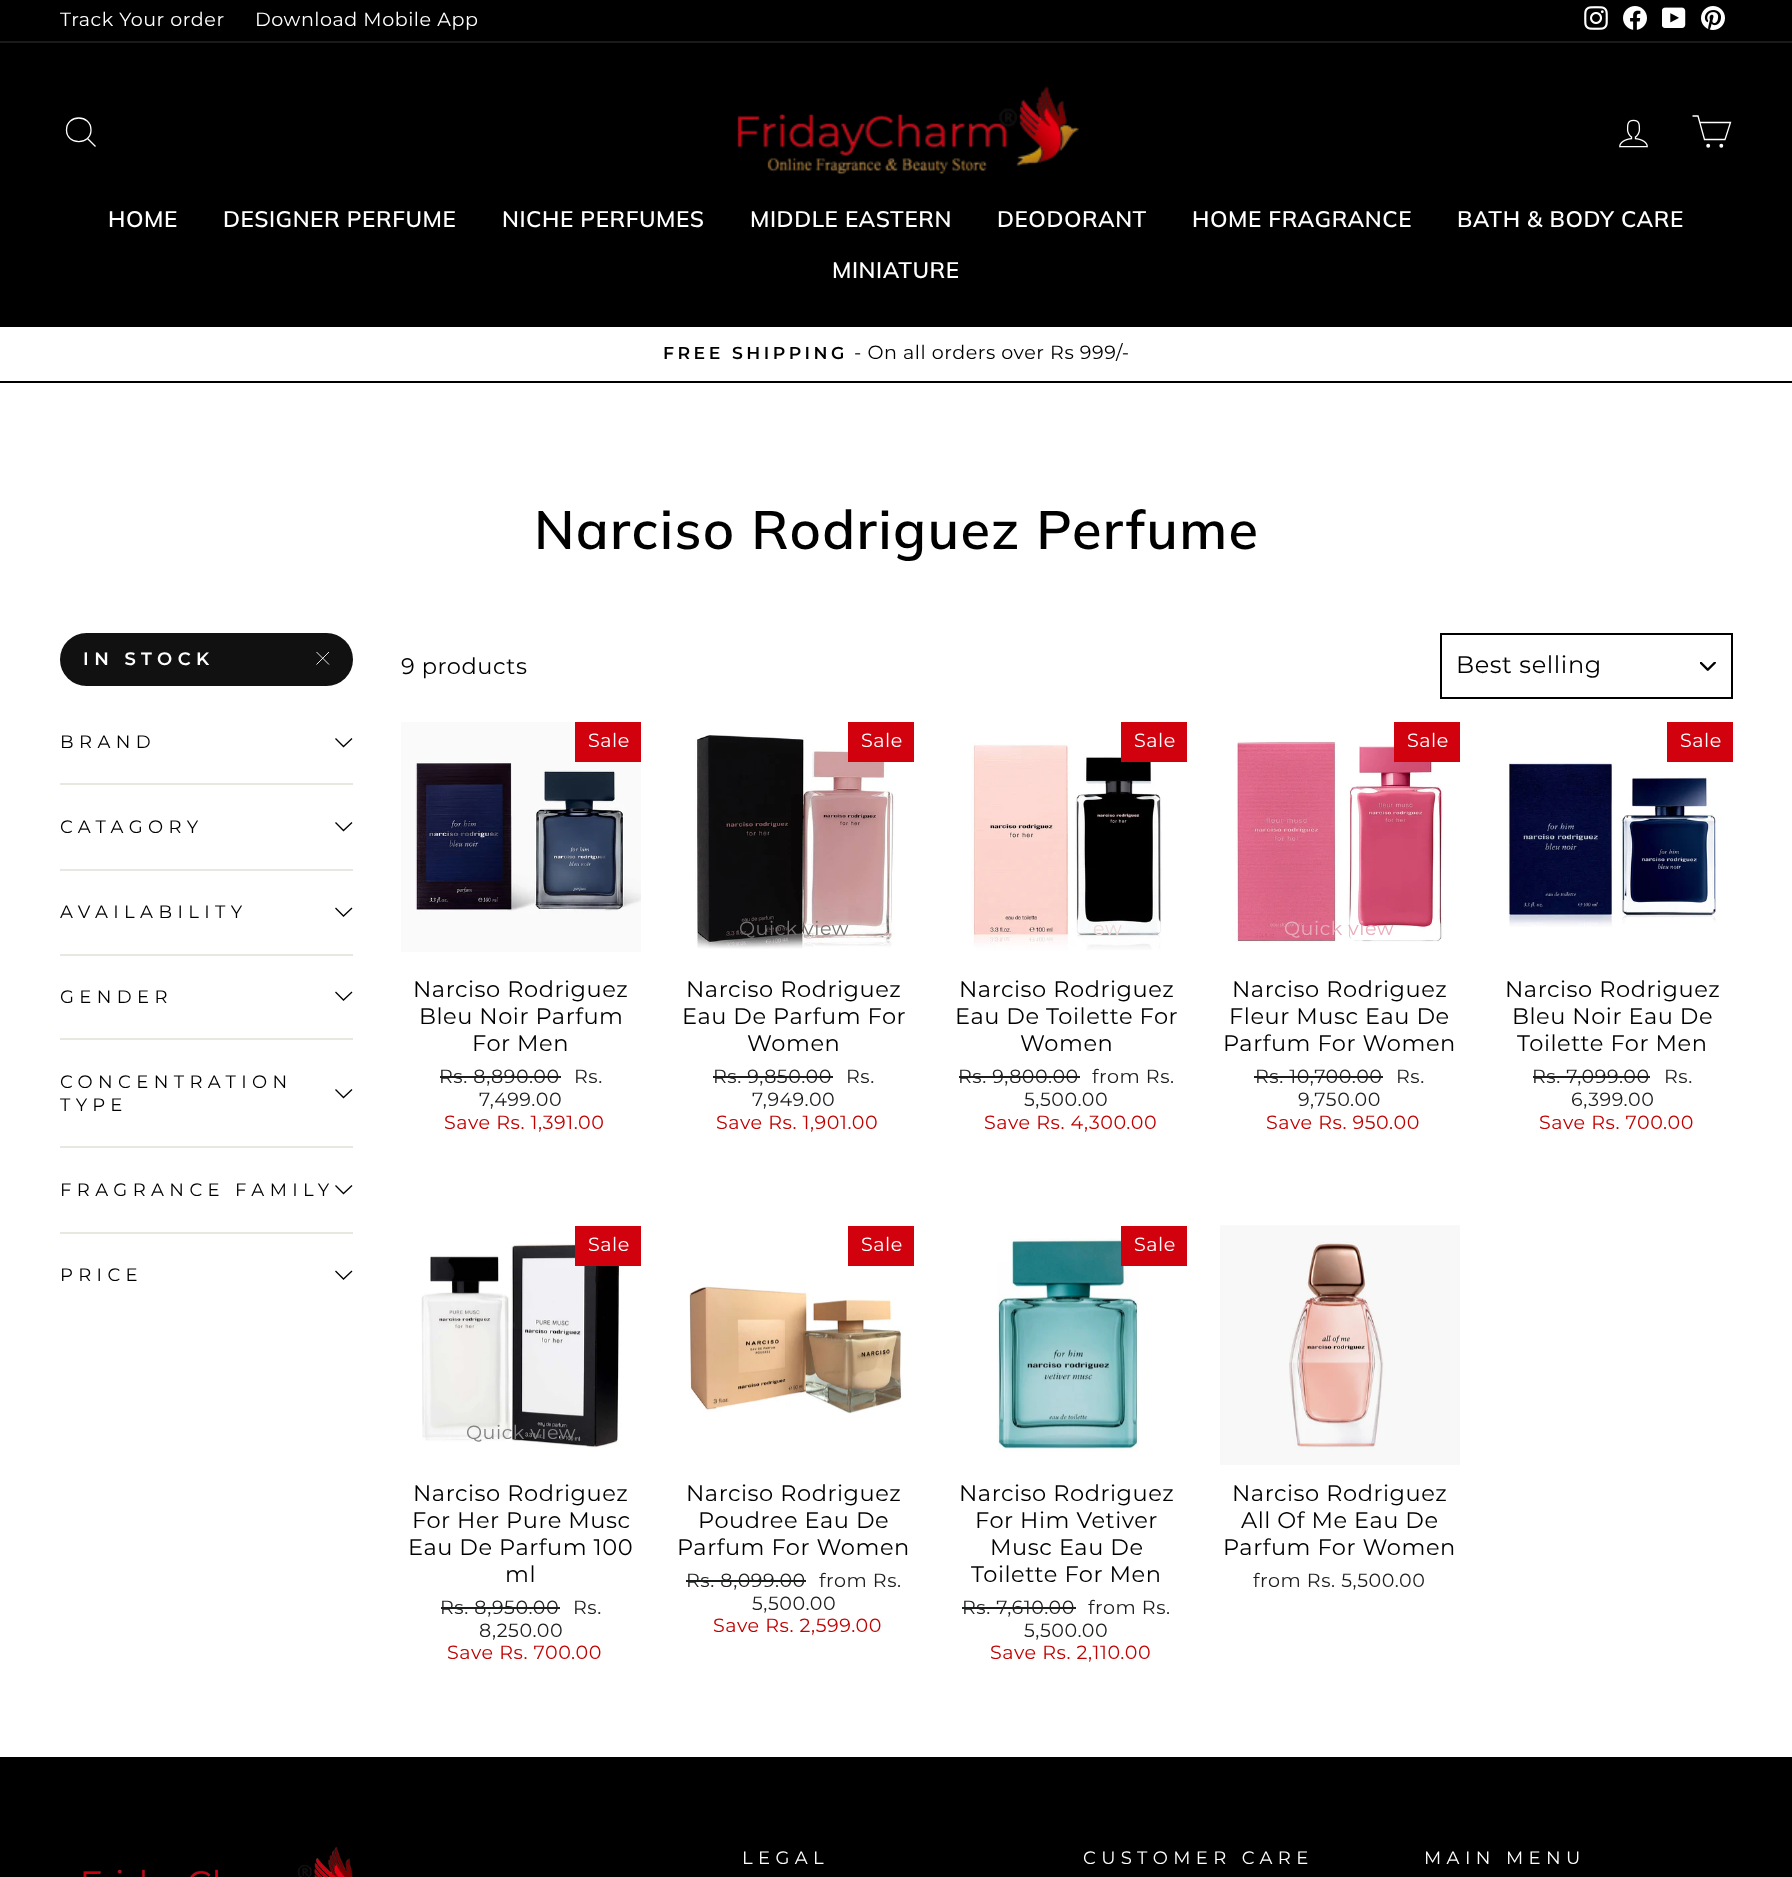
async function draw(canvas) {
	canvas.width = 1792;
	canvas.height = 1877;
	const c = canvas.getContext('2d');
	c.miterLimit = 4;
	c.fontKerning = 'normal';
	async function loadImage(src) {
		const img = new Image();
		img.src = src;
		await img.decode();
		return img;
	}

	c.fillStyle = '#fff';
	c.fillRect(0, 0, 1792, 1877);
	c.fillStyle = '#000';
	c.fillRect(0, 0, 1792, 41);
	c.letterSpacing = '0.55px';
	c.font = '19.1px Montserrat';
	c.fillStyle = '#fff';
	c.fillText('Track Your order', 60, 26);
	c.fillText('Download Mobile App', 255, 26);
	c.drawImage(await loadImage('img1.png'), 1584, 6, 24, 24);
	c.drawImage(await loadImage('img2.png'), 1623, 6, 24, 24);
	c.drawImage(await loadImage('img3.png'), 1662, 7, 24, 21);
	c.drawImage(await loadImage('img4.png'), 1701, 6, 24, 24);
	c.fillStyle = '#000';
	c.fillRect(0, 43, 1792, 284);
	c.fillStyle = '#1a1a1a';
	c.fillRect(0, 41, 1792, 2);
	c.beginPath();
	c.moveTo(91, 130);
	c.bezierCurveTo(91, 145.5, 66.5, 145.5, 66.5, 130);
	c.bezierCurveTo(66.5, 114, 91, 114, 91, 130);
	c.closePath();
	c.moveTo(95.5, 146.5);
	c.lineTo(87.5, 138.5);
	c.strokeStyle = '#fff';
	c.lineWidth = 1.3;
	c.stroke();
	c.drawImage(await loadImage('img5.png'), 737, 86, 342, 89);
	c.drawImage(await loadImage('img6.png'), 1619, 119, 29, 29);
	c.beginPath();
	c.moveTo(1699.5, 122.5);
	c.lineTo(1730.5, 122.5);
	c.lineTo(1725, 139.5);
	c.lineTo(1704.5, 139.5);
	c.lineTo(1698, 116);
	c.lineTo(1692.5, 116);
	c.stroke();
	c.fillStyle = '#fff';
	c.beginPath();
	c.arc(1708.2, 145.8, 1.3, 0, 2 * Math.PI);
	c.fill();
	c.stroke();
	c.beginPath();
	c.arc(1721.3, 145.8, 1.3, 0, 2 * Math.PI);
	c.fill();
	c.stroke();
	c.font = '600 22.5px Muli';
	for (const [text, x, y] of [
		['HOME', 108, 227],
		['DESIGNER PERFUME', 223, 227],
		['NICHE PERFUMES', 502, 227],
		['MIDDLE EASTERN', 750, 227],
		['DEODORANT', 997, 227],
		['HOME FRAGRANCE', 1192, 227],
		['BATH & BODY CARE', 1457, 227],
		['MINIATURE', 832, 278],
	]) {
		c.fillText(text, x, y);
	}
	c.fillStyle = '#000';
	c.fillRect(0, 381, 1792, 2);
	c.letterSpacing = '3.5px';
	c.font = '600 17.25px Montserrat';
	c.fillText('FREE SHIPPING', 663, 359);
	c.letterSpacing = '0.55px';
	c.font = '19.1px Montserrat';
	c.fillText('- On all orders over Rs 999/-', 854, 359);
	c.letterSpacing = '1.35px';
	c.font = '600 54px Muli';
	c.fillText('Narciso Rodriguez Perfume', 534, 549);
	c.fillStyle = '#111';
	c.beginPath();
	c.roundRect(60, 633, 293, 53, 26.5);
	c.fill();
	c.letterSpacing = '5.4px';
	c.font = '600 18px Montserrat';
	c.fillStyle = '#fff';
	c.fillText('IN STOCK', 83, 665);
	c.beginPath();
	c.moveTo(316.5, 652);
	c.lineTo(329, 664.5);
	c.moveTo(329, 652);
	c.lineTo(316.5, 664.5);
	c.lineWidth = 0.9;
	c.stroke();
	c.font = '18px Montserrat';
	c.fillStyle = '#000';
	c.fillText('BRAND', 60, 748);
	c.beginPath();
	c.moveTo(335.5, 738.5);
	c.lineTo(343.5, 746.5);
	c.lineTo(352, 738.5);
	c.strokeStyle = '#000';
	c.lineWidth = 1.3;
	c.stroke();
	c.fillStyle = '#e8e8e1';
	c.fillRect(60, 783, 293, 2);
	c.fillStyle = '#000';
	c.fillText('CATAGORY', 60, 833);
	c.beginPath();
	c.moveTo(335.5, 822.5);
	c.lineTo(343.5, 830.5);
	c.lineTo(352, 822.5);
	c.stroke();
	c.fillStyle = '#e8e8e1';
	c.fillRect(60, 869, 293, 2);
	c.fillStyle = '#000';
	c.fillText('AVAILABILITY', 60, 918);
	c.beginPath();
	c.moveTo(335.5, 908);
	c.lineTo(343.5, 916);
	c.lineTo(352, 908);
	c.stroke();
	c.fillStyle = '#e8e8e1';
	c.fillRect(60, 954, 293, 2);
	c.fillStyle = '#000';
	c.fillText('GENDER', 60, 1003);
	c.beginPath();
	c.moveTo(335.5, 992);
	c.lineTo(343.5, 1000);
	c.lineTo(352, 992);
	c.stroke();
	c.fillStyle = '#e8e8e1';
	c.fillRect(60, 1038, 293, 2);
	c.fillStyle = '#000';
	c.fillText('CONCENTRATION', 60, 1088);
	c.beginPath();
	c.moveTo(335.5, 1089.5);
	c.lineTo(343.5, 1097.5);
	c.lineTo(352, 1089.5);
	c.stroke();
	c.fillText('TYPE', 60, 1111);
	c.fillStyle = '#e8e8e1';
	c.fillRect(60, 1146, 293, 2);
	c.fillStyle = '#000';
	c.fillText('FRAGRANCE FAMILY', 60, 1196);
	c.beginPath();
	c.moveTo(335.5, 1185.5);
	c.lineTo(343.5, 1193.5);
	c.lineTo(352, 1185.5);
	c.stroke();
	c.fillStyle = '#e8e8e1';
	c.fillRect(60, 1232, 293, 2);
	c.fillStyle = '#000';
	c.fillText('PRICE', 60, 1281);
	c.beginPath();
	c.moveTo(335.5, 1271);
	c.lineTo(343.5, 1279);
	c.lineTo(352, 1271);
	c.stroke();
	c.letterSpacing = '0.55px';
	c.font = '22.5px Montserrat';
	c.fillText('9 products', 401, 674);
	c.drawImage(await loadImage('img7.png'), 1700, 662, 16, 9);
	c.lineWidth = 2;
	c.strokeRect(1441, 634, 291, 64);
	c.letterSpacing = '0.6px';
	c.font = '24px Montserrat';
	c.fillText('Best selling', 1456, 673);
	c.drawImage(await loadImage('img8.png'), 401, 722, 240, 230);
	c.fillStyle = '#d1010d';
	c.fillRect(575, 722, 66, 40);
	c.letterSpacing = '0.55px';
	c.font = '19.1px Montserrat';
	c.fillStyle = '#fff';
	c.fillText('Sale', 588, 747);
	c.font = '22.5px Montserrat';
	c.fillStyle = '#000';
	for (const [text, x, y] of [
		['Narciso Rodriguez', 413, 997],
		['Bleu Noir Parfum', 419, 1024],
		['For Men', 472, 1051],
	]) {
		c.fillText(text, x, y);
	}
	c.font = '19.1px Montserrat';
	c.fillStyle = '#1c1d1d';
	c.fillText('Rs. 8,890.00', 439, 1083);
	c.fillRect(440, 1076, 121, 2);
	c.fillText('Rs.', 574, 1083);
	c.fillText('7,499.00', 479, 1106);
	c.fillStyle = '#c20000';
	c.fillText('Save Rs. 1,391.00', 444, 1129);
	c.drawImage(await loadImage('img9.png'), 695, 735, 200, 214);
	c.fillStyle = '#d1010d';
	c.fillRect(848, 722, 66, 40);
	c.fillStyle = '#fff';
	c.fillText('Sale', 861, 747);
	c.fillStyle = '#757271';
	c.fillText('Quick view', 739, 935);
	c.font = '22.5px Montserrat';
	c.fillStyle = '#000';
	for (const [text, x, y] of [
		['Narciso Rodriguez', 686, 997],
		['Eau De Parfum For', 682, 1024],
		['Women', 747, 1051],
	]) {
		c.fillText(text, x, y);
	}
	c.font = '19.1px Montserrat';
	c.fillStyle = '#1c1d1d';
	c.fillText('Rs. 9,850.00', 713, 1083);
	c.fillRect(713, 1076, 120, 2);
	c.fillText('Rs.', 846, 1083);
	c.fillText('7,949.00', 752, 1106);
	c.fillStyle = '#c20000';
	c.fillText('Save Rs. 1,901.00', 716, 1129);
	c.drawImage(await loadImage('img10.png'), 971, 743, 191, 208);
	c.fillStyle = '#d1010d';
	c.fillRect(1121, 722, 66, 40);
	c.fillStyle = '#fff';
	c.fillText('Sale', 1134, 747);
	c.fillStyle = '#eedcd9';
	c.fillText('ew', 1093, 935);
	c.font = '22.5px Montserrat';
	c.fillStyle = '#000';
	for (const [text, x, y] of [
		['Narciso Rodriguez', 959, 997],
		['Eau De Toilette For', 955, 1024],
		['Women', 1020, 1051],
	]) {
		c.fillText(text, x, y);
	}
	c.font = '19.1px Montserrat';
	c.fillStyle = '#1c1d1d';
	c.fillText('Rs. 9,800.00', 958, 1083);
	c.fillRect(959, 1076, 121, 2);
	c.fillText('from Rs.', 1092, 1083);
	c.fillText('5,500.00', 1024, 1106);
	c.fillStyle = '#c20000';
	c.fillText('Save Rs. 4,300.00', 984, 1129);
	c.drawImage(await loadImage('img11.png'), 1235, 741, 209, 202);
	c.fillStyle = '#d1010d';
	c.fillRect(1394, 722, 66, 40);
	c.fillStyle = '#fff';
	c.fillText('Sale', 1407, 747);
	c.fillStyle = '#e9acbc';
	c.fillText('Quick view', 1284, 935);
	c.font = '22.5px Montserrat';
	c.fillStyle = '#000';
	for (const [text, x, y] of [
		['Narciso Rodriguez', 1232, 997],
		['Fleur Musc Eau De', 1229, 1024],
		['Parfum For Women', 1223, 1051],
	]) {
		c.fillText(text, x, y);
	}
	c.font = '19.1px Montserrat';
	c.fillStyle = '#1c1d1d';
	c.fillText('Rs. 10,700.00', 1255, 1083);
	c.fillRect(1254, 1076, 129, 2);
	c.fillText('Rs.', 1396, 1083);
	c.fillText('9,750.00', 1298, 1106);
	c.fillStyle = '#c20000';
	c.fillText('Save Rs. 950.00', 1266, 1129);
	c.fillStyle = '#d1010d';
	c.fillRect(1667, 722, 66, 40);
	c.fillStyle = '#fff';
	c.fillText('Sale', 1680, 747);
	c.drawImage(await loadImage('img12.png'), 1507, 762, 210, 165);
	c.font = '22.5px Montserrat';
	c.fillStyle = '#000';
	for (const [text, x, y] of [
		['Narciso Rodriguez', 1505, 997],
		['Bleu Noir Eau De', 1512, 1024],
		['Toilette For Men', 1517, 1051],
	]) {
		c.fillText(text, x, y);
	}
	c.font = '19.1px Montserrat';
	c.fillStyle = '#1c1d1d';
	c.fillText('Rs. 7,099.00', 1532, 1083);
	c.fillRect(1533, 1076, 117, 2);
	c.fillText('Rs.', 1664, 1083);
	c.fillText('6,399.00', 1571, 1106);
	c.fillStyle = '#c20000';
	c.fillText('Save Rs. 700.00', 1539, 1129);
	c.drawImage(await loadImage('img13.png'), 421, 1243, 201, 205);
	c.fillStyle = '#d1010d';
	c.fillRect(575, 1226, 66, 40);
	c.fillStyle = '#fff';
	c.fillText('Sale', 588, 1251);
	c.fillStyle = '#828283';
	c.fillText('Quick view', 466, 1439);
	c.font = '22.5px Montserrat';
	c.fillStyle = '#000';
	for (const [text, x, y] of [
		['Narciso Rodriguez', 413, 1501],
		['For Her Pure Musc', 412, 1528],
		['Eau De Parfum 100', 408, 1555],
		['ml', 505, 1582],
	]) {
		c.fillText(text, x, y);
	}
	c.font = '19.1px Montserrat';
	c.fillStyle = '#1c1d1d';
	c.fillText('Rs. 8,950.00', 440, 1614);
	c.fillRect(441, 1607, 119, 2);
	c.fillText('Rs.', 573, 1614);
	c.fillText('8,250.00', 479, 1637);
	c.fillStyle = '#c20000';
	c.fillText('Save Rs. 700.00', 447, 1659);
	c.fillStyle = '#d1010d';
	c.fillRect(848, 1226, 66, 40);
	c.fillStyle = '#fff';
	c.fillText('Sale', 861, 1251);
	c.drawImage(await loadImage('img14.png'), 689, 1284, 214, 130);
	c.font = '22.5px Montserrat';
	c.fillStyle = '#000';
	for (const [text, x, y] of [
		['Narciso Rodriguez', 686, 1501],
		['Poudree Eau De', 698, 1528],
		['Parfum For Women', 677, 1555],
	]) {
		c.fillText(text, x, y);
	}
	c.font = '19.1px Montserrat';
	c.fillStyle = '#1c1d1d';
	c.fillText('Rs. 8,099.00', 686, 1587);
	c.fillRect(686, 1580, 120, 2);
	c.fillText('from Rs.', 819, 1587);
	c.fillText('5,500.00', 752, 1610);
	c.fillStyle = '#c20000';
	c.fillText('Save Rs. 2,599.00', 713, 1632);
	c.drawImage(await loadImage('img15.png'), 997, 1238, 142, 214);
	c.fillStyle = '#d1010d';
	c.fillRect(1121, 1226, 66, 40);
	c.fillStyle = '#fff';
	c.fillText('Sale', 1134, 1251);
	c.font = '22.5px Montserrat';
	c.fillStyle = '#000';
	for (const [text, x, y] of [
		['Narciso Rodriguez', 959, 1501],
		['For Him Vetiver', 975, 1528],
		['Musc Eau De', 990, 1555],
		['Toilette For Men', 971, 1582],
	]) {
		c.fillText(text, x, y);
	}
	c.font = '19.1px Montserrat';
	c.fillStyle = '#1c1d1d';
	c.fillText('Rs. 7,610.00', 962, 1614);
	c.fillRect(962, 1607, 114, 2);
	c.fillText('from Rs.', 1088, 1614);
	c.fillText('5,500.00', 1024, 1637);
	c.fillStyle = '#c20000';
	c.fillText('Save Rs. 2,110.00', 990, 1659);
	c.drawImage(await loadImage('img16.png'), 1220, 1225, 240, 240);
	c.font = '22.5px Montserrat';
	c.fillStyle = '#000';
	for (const [text, x, y] of [
		['Narciso Rodriguez', 1232, 1501],
		['All Of Me Eau De', 1241, 1528],
		['Parfum For Women', 1223, 1555],
	]) {
		c.fillText(text, x, y);
	}
	c.font = '19.1px Montserrat';
	c.fillStyle = '#1c1d1d';
	c.fillText('from Rs. 5,500.00', 1253, 1587);
	c.fillStyle = '#000';
	c.fillRect(0, 1757, 1792, 120);
	c.drawImage(await loadImage('img17.png'), 83, 1847, 270, 30);
	c.letterSpacing = '5.4px';
	c.font = '18px Montserrat';
	c.fillStyle = '#fff';
	for (const [text, x, y] of [
		['LEGAL', 742, 1864],
		['CUSTOMER CARE', 1083, 1864],
		['MAIN MENU', 1424, 1864],
	]) {
		c.fillText(text, x, y);
	}
}

draw(document.querySelector('canvas'));
